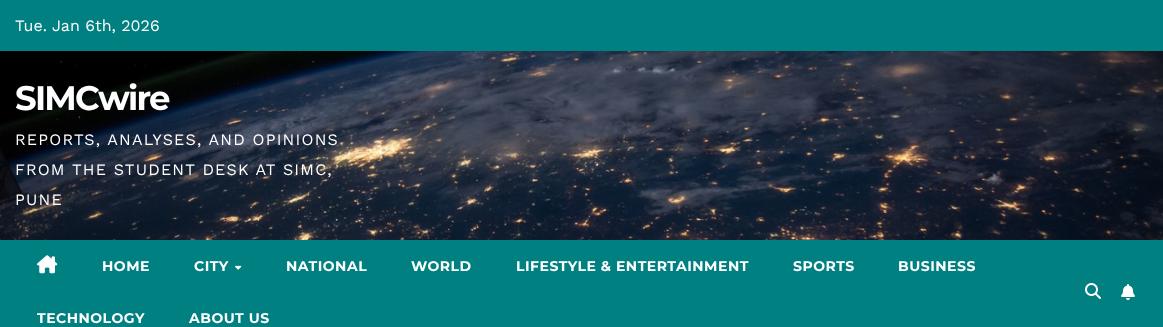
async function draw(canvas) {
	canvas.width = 1163;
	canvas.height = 327;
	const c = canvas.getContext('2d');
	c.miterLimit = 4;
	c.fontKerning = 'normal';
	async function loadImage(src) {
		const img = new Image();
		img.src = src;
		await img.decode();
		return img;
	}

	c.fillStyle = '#008080';
	c.fillRect(0, 0, 1163, 327);
	c.font = '16px Work Sans';
	c.fillStyle = '#fff';
	c.fillText('Tue. Jan 6th, 2026', 15, 31);
	c.drawImage(await loadImage('img1.png'), 0, 51, 1163, 189);
	c.letterSpacing = '-1.75px';
	c.font = 'bold 34px Montserrat';
	c.fillText('SIMCwire', 15, 110);
	c.letterSpacing = '1.2px';
	c.font = '16px Work Sans';
	for (const [text, x, y] of [
		['REPORTS, ANALYSES, AND OPINIONS', 15, 145],
		['FROM THE STUDENT DESK AT SIMC,', 15, 175],
		['PUNE', 15, 205],
	]) {
		c.fillText(text, x, y);
	}
	c.drawImage(await loadImage('img2.png'), 37, 255, 21, 19);
	c.letterSpacing = '0.5px';
	c.font = 'bold 14px Montserrat';
	c.fillText('HOME', 102, 271);
	c.fillText('CITY', 194, 271);
	c.drawImage(await loadImage('img3.png'), 235, 265, 7, 5);
	for (const [text, x, y] of [
		['NATIONAL', 286, 271],
		['WORLD', 411, 271],
		['LIFESTYLE & ENTERTAINMENT', 516, 271],
		['SPORTS', 793, 271],
		['BUSINESS', 898, 271],
		['TECHNOLOGY', 37, 323],
		['ABOUT US', 189, 323],
	]) {
		c.fillText(text, x, y);
	}
	c.drawImage(await loadImage('img4.png'), 1085, 283, 16, 16);
	c.drawImage(await loadImage('img5.png'), 1121, 284, 14, 16);
}

draw(document.querySelector('canvas'));
